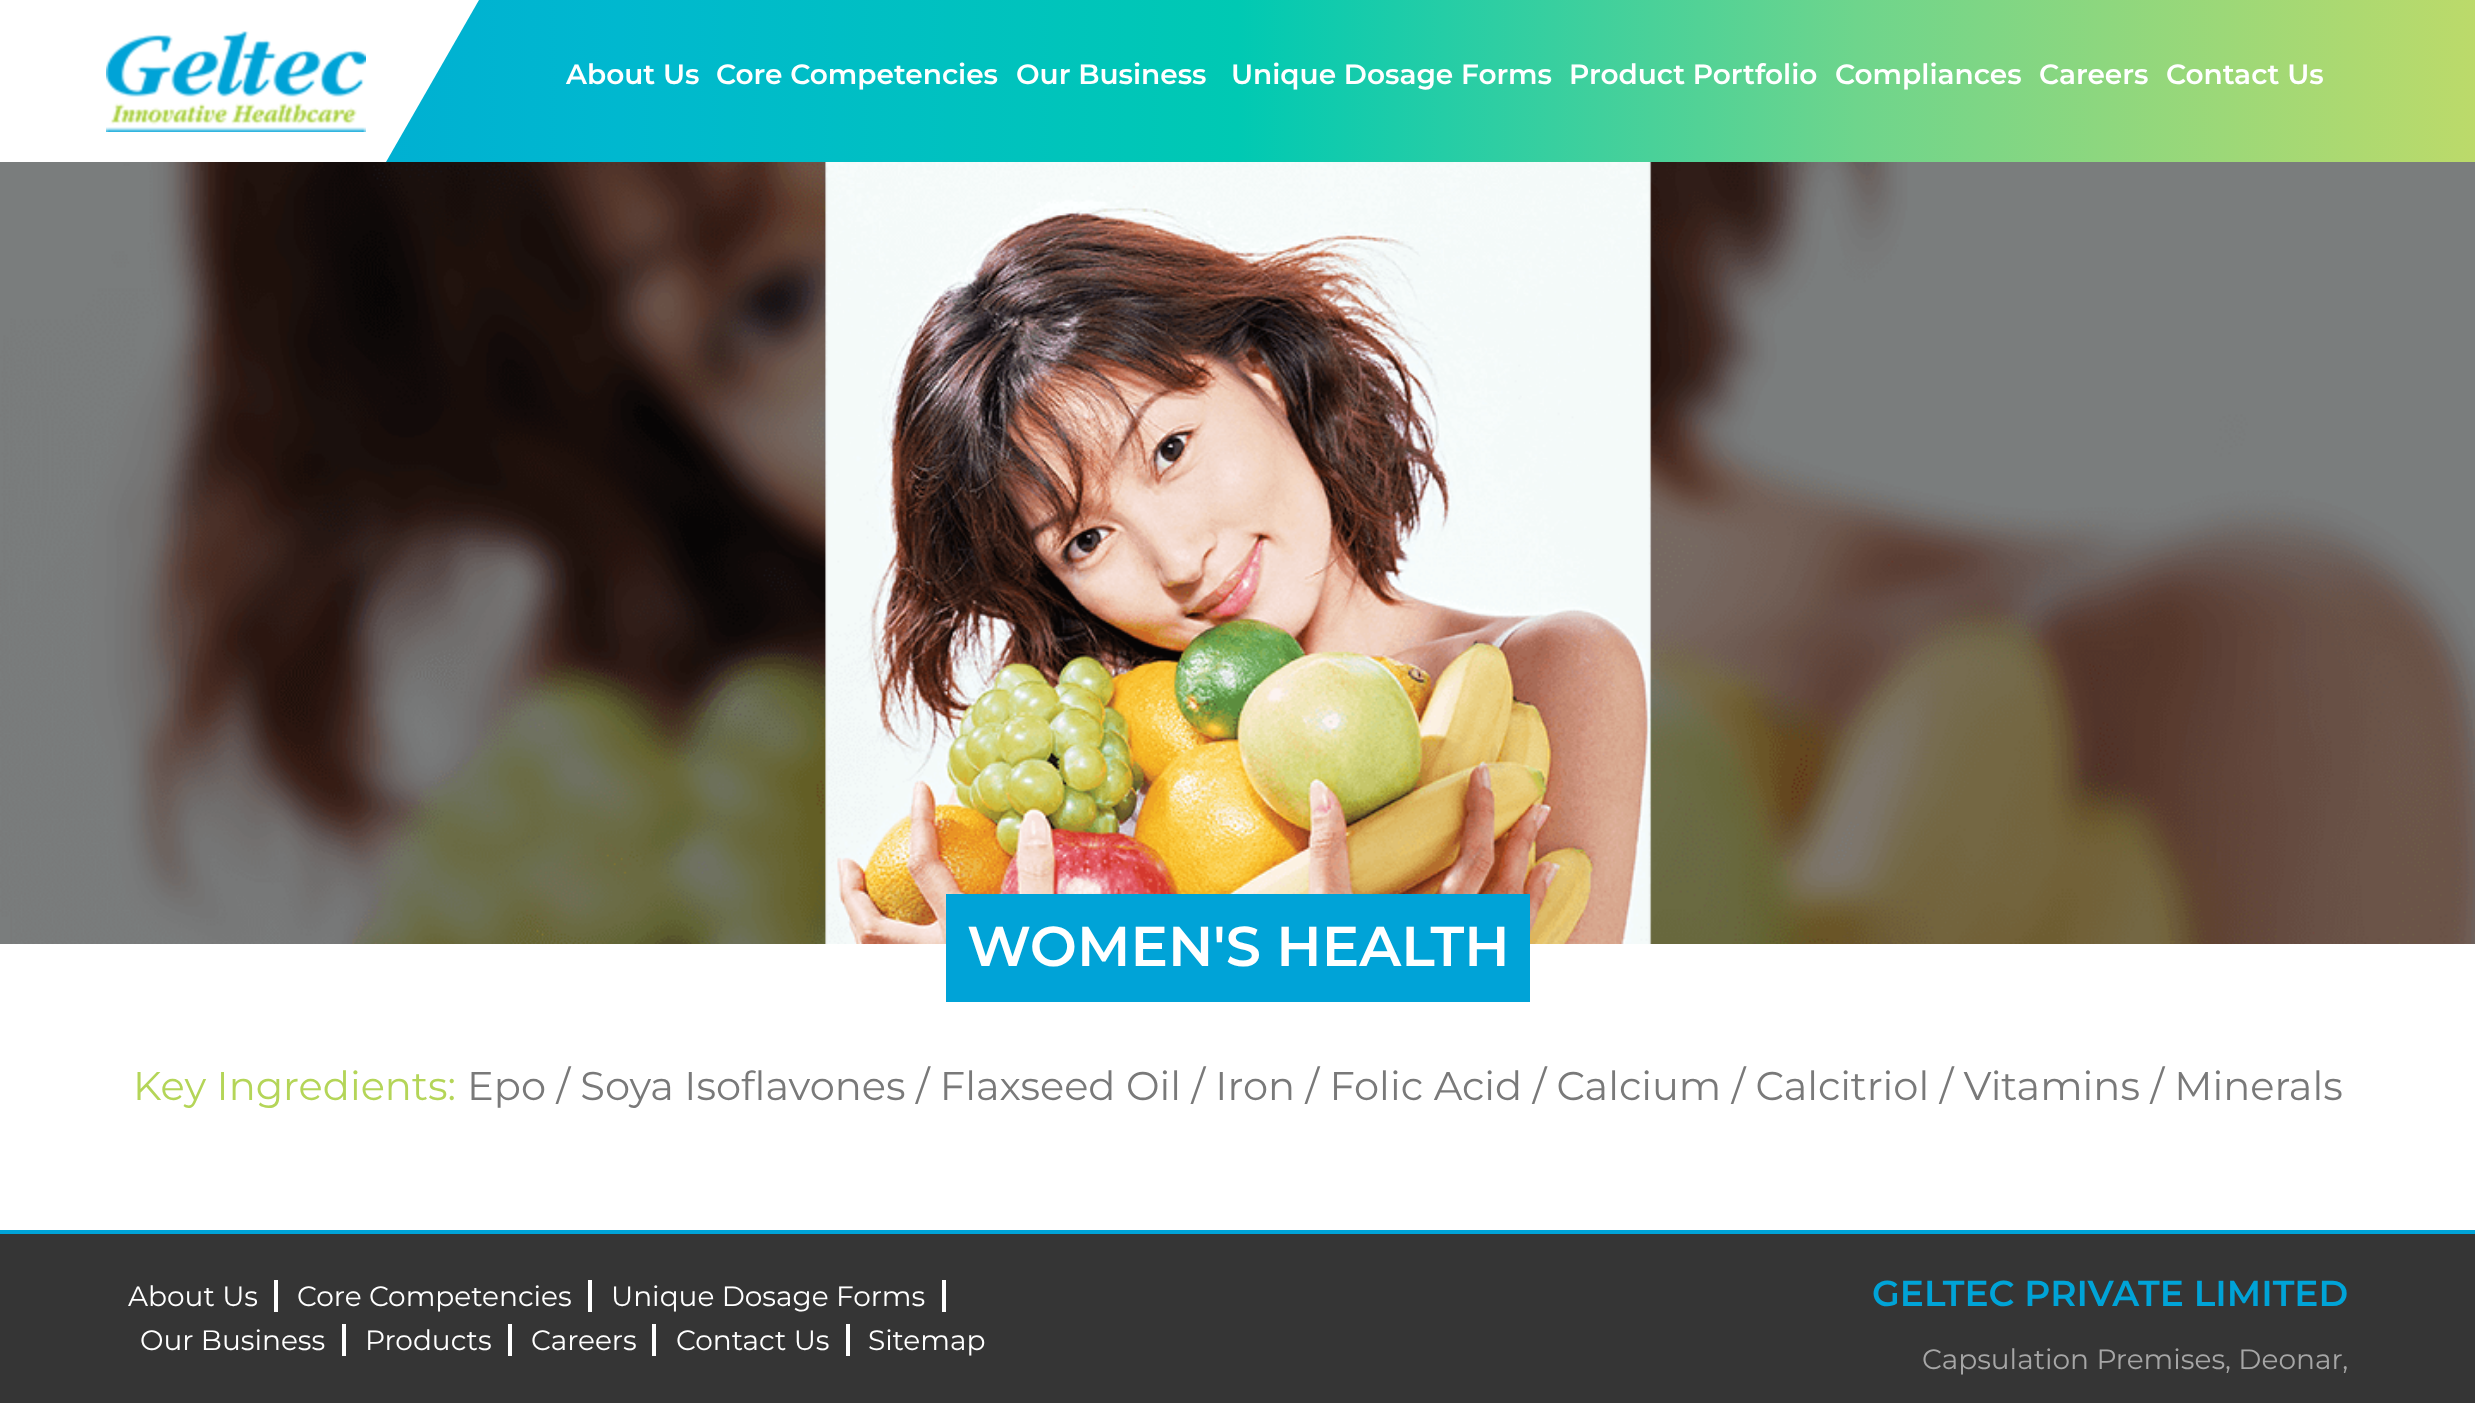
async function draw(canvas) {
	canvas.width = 2475;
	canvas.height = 1403;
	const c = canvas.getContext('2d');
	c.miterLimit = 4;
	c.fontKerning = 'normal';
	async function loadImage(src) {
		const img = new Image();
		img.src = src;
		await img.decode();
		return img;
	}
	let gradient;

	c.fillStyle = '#fff';
	c.fillRect(0, 0, 2475, 1403);
	gradient = c.createLinearGradient(0, 81, 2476, 81);
	gradient.addColorStop(0, '#00a3d7');
	gradient.addColorStop(0.25, '#00b8cf');
	gradient.addColorStop(0.5, '#00c9b3');
	gradient.addColorStop(0.75, '#6ed58c');
	gradient.addColorStop(1, '#bcda6a');
	c.fillStyle = gradient;
	c.fillRect(386, 0, 2089, 162);
	c.fillStyle = '#fff';
	c.beginPath();
	c.moveTo(-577, 0);
	c.lineTo(479, 0);
	c.lineTo(386, 162);
	c.lineTo(-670, 162);
	c.closePath();
	c.fill();
	c.drawImage(await loadImage('img1.png'), 106, 31, 260, 101);
	c.font = '600 28px Montserrat';
	for (const [text, x, y] of [
		['About Us', 566, 84],
		['Core Competencies', 716, 84],
		['Our Business', 1016, 84],
		['Unique Dosage Forms', 1231, 84],
		['Product Portfolio', 1569, 84],
		['Compliances', 1835, 84],
		['Careers', 2039, 84],
		['Contact Us', 2166, 84],
	]) {
		c.fillText(text, x, y);
	}
	c.drawImage(await loadImage('img2.png'), 0, 162, 2475, 782);
	c.fillStyle = '#00a3d7';
	c.fillRect(946, 894, 584, 108);
	c.font = '600 56px Montserrat';
	c.fillStyle = '#fff';
	c.fillText('WOMEN\'S HEALTH', 967, 966);
	c.font = '40px Montserrat';
	c.fillStyle = '#b4d558';
	c.fillText('Key Ingredients:', 133, 1100);
	c.fillStyle = '#797979';
	c.fillText('Epo / Soya Isoflavones / Flaxseed Oil / Iron / Folic Acid / Calcium / Calcitriol / Vitamins / Minerals', 467, 1100);
	c.fillStyle = '#353535';
	c.fillRect(0, 1234, 2475, 169);
	c.fillStyle = '#00a3d7';
	c.fillRect(0, 1230, 2475, 4);
	c.font = '28px Montserrat';
	c.fillStyle = '#fff';
	c.fillText('About Us', 128, 1306);
	c.fillRect(274, 1280, 4, 32);
	c.fillText('Core Competencies', 297, 1306);
	c.fillRect(588, 1280, 4, 32);
	c.fillText('Unique Dosage Forms', 611, 1306);
	c.fillRect(942, 1280, 4, 32);
	c.fillText('Our Business', 140, 1350);
	c.fillRect(342, 1324, 4, 32);
	c.fillText('Products', 365, 1350);
	c.fillRect(508, 1324, 4, 32);
	c.fillText('Careers', 531, 1350);
	c.fillRect(652, 1324, 4, 32);
	c.fillText('Contact Us', 676, 1350);
	c.fillRect(846, 1324, 4, 32);
	c.fillText('Sitemap', 868, 1350);
	c.font = '600 36px Montserrat';
	c.fillStyle = '#00a3d7';
	c.fillText('GELTEC PRIVATE LIMITED', 1872, 1306);
	c.font = '28px Montserrat';
	c.fillStyle = '#a6a6a6';
	c.fillText('Capsulation Premises, Deonar,', 1922, 1369);
}

draw(document.querySelector('canvas'));
